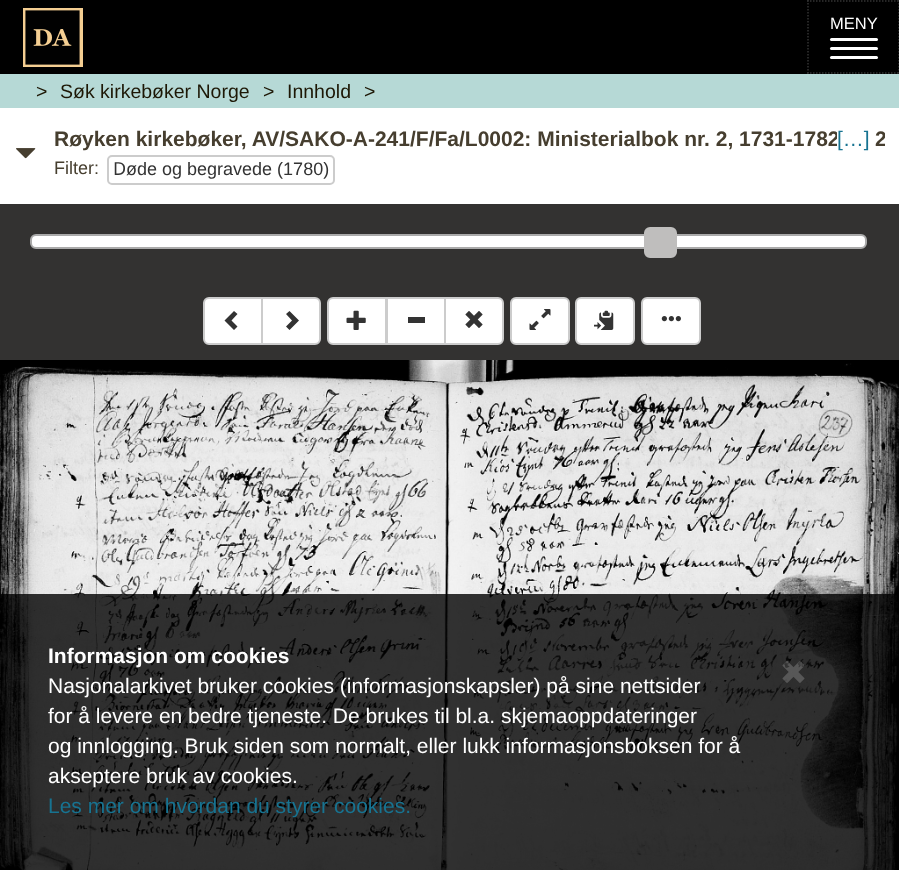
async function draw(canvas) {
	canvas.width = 899;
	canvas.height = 870;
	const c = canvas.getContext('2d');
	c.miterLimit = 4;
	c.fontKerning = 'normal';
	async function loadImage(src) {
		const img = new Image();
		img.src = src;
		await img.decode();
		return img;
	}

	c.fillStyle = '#fff';
	c.fillRect(0, 0, 899, 870);
	c.fillStyle = '#000';
	c.fillRect(0, 0, 899, 74);
	c.drawImage(await loadImage('img1.png'), 23, 8, 60, 59);
	c.beginPath();
	c.moveTo(807, 1);
	c.lineTo(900, 1);
	c.strokeStyle = '#333';
	c.lineWidth = 1.5;
	c.setLineDash([1.5, 1.5]);
	c.stroke();
	c.beginPath();
	c.moveTo(899, 0);
	c.lineTo(899, 73.5);
	c.stroke();
	c.beginPath();
	c.moveTo(807, 73);
	c.lineTo(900, 73);
	c.stroke();
	c.beginPath();
	c.moveTo(808, 0);
	c.lineTo(808, 73.5);
	c.stroke();
	c.font = '16.5px Liberation Sans';
	c.fillStyle = '#fff';
	c.fillText('MENY', 830, 29);
	c.beginPath();
	c.roundRect(830, 38, 48, 3, 1.5);
	c.fill();
	c.beginPath();
	c.roundRect(830, 47, 48, 3, 1.5);
	c.fill();
	c.beginPath();
	c.roundRect(830, 56, 48, 3, 1.5);
	c.fill();
	c.fillStyle = '#b6d9d6';
	c.fillRect(0, 74, 899, 34);
	c.font = '19.5px Liberation Sans';
	c.fillStyle = '#1d1705';
	for (const [text, x, y] of [
		['>', 36, 98],
		['Søk kirkebøker Norge', 60, 98],
		['>', 263, 98],
		['Innhold', 287, 98],
		['>', 364, 98],
	]) {
		c.fillText(text, x, y);
	}
	c.drawImage(await loadImage('img2.png'), 16, 148, 20, 11);
	c.font = 'bold 21px Liberation Sans';
	c.fillStyle = '#463e2f';
	c.fillText('Røyken kirkebøker, AV/SAKO-A-241/F/Fa/L0002: Ministerialbok nr. 2, 1731-1782', 54, 146);
	c.fillStyle = '#fff';
	c.fillRect(837, 132, 2, 14);
	c.font = '21px Liberation Sans';
	c.fillStyle = '#177391';
	c.fillText('[…]', 837, 146);
	c.save();
	c.beginPath();
	c.rect(51, 125, 834, 28);
	c.clip();
	c.font = 'bold 21px Liberation Sans';
	c.fillStyle = '#463e2f';
	c.fillText('2', 875, 146);
	c.restore();
	c.font = '18px Liberation Sans';
	c.fillStyle = '#463e2f';
	c.fillText('Filter:', 54, 174);
	c.beginPath();
	c.roundRect(108, 156, 226, 28, 4);
	c.strokeStyle = '#ccc';
	c.lineWidth = 2;
	c.setLineDash([]);
	c.stroke();
	c.font = '18px Noto Sans';
	c.fillStyle = '#333';
	c.fillText('D', 113, 175);
	c.font = '18px Liberation Sans';
	c.fillText('øde og begravede (1780)', 126, 175);
	c.fillStyle = '#333231';
	c.fillRect(0, 204, 899, 156);
	c.fillStyle = '#fff';
	c.beginPath();
	c.roundRect(31, 235, 835, 13, 5);
	c.fill();
	c.strokeStyle = '#aaa';
	c.stroke();
	c.fillStyle = '#bfbebd';
	c.beginPath();
	c.roundRect(645, 228, 31, 29, 5);
	c.fill();
	c.strokeStyle = '#bfbebd';
	c.stroke();
	c.fillStyle = '#fff';
	c.beginPath();
	c.roundRect(204, 298, 58, 46, [5, 0, 0, 5]);
	c.fill();
	c.strokeStyle = '#ccc';
	c.stroke();
	c.fillStyle = '#333';
	c.beginPath();
	c.moveTo(237.5, 314);
	c.lineTo(231.5, 320.5);
	c.lineTo(237.5, 326.5);
	c.lineTo(234, 330);
	c.lineTo(224.5, 320.5);
	c.lineTo(234, 311);
	c.closePath();
	c.fill();
	c.fillStyle = '#fff';
	c.beginPath();
	c.roundRect(262, 298, 58, 46, [0, 5, 5, 0]);
	c.fill();
	c.stroke();
	c.fillStyle = '#333';
	c.beginPath();
	c.moveTo(299, 320.5);
	c.lineTo(289.5, 330);
	c.lineTo(286, 326.5);
	c.lineTo(292, 320.5);
	c.lineTo(286, 314);
	c.lineTo(289.5, 311);
	c.closePath();
	c.fill();
	c.fillStyle = '#fff';
	c.beginPath();
	c.roundRect(328, 298, 58, 46, [5, 0, 0, 5]);
	c.fill();
	c.stroke();
	c.drawImage(await loadImage('img3.png'), 346, 310, 20, 20);
	c.beginPath();
	c.rect(387, 298, 58, 46);
	c.fill();
	c.stroke();
	c.fillStyle = '#333';
	c.fillRect(408, 317, 17, 6);
	c.fillStyle = '#fff';
	c.beginPath();
	c.roundRect(445, 298, 58, 46, [0, 5, 5, 0]);
	c.fill();
	c.stroke();
	c.drawImage(await loadImage('img4.png'), 465, 311, 18, 17);
	c.beginPath();
	c.roundRect(511, 298, 58, 46, 5);
	c.fill();
	c.stroke();
	c.drawImage(await loadImage('img5.png'), 529, 309, 22, 21);
	c.beginPath();
	c.roundRect(576, 298, 58, 46, 5);
	c.fill();
	c.stroke();
	c.drawImage(await loadImage('img6.png'), 594, 310, 20, 20);
	c.beginPath();
	c.roundRect(642, 298, 58, 46, 5);
	c.fill();
	c.stroke();
	c.drawImage(await loadImage('img7.png'), 661, 316, 20, 6);
	c.drawImage(await loadImage('img8.png'), 0, 360, 899, 510);
	c.fillStyle = '#000000cc';
	c.fillRect(0, 594, 899, 276);
	c.font = 'bold 21px Liberation Sans';
	c.fillStyle = '#fff';
	c.fillText('Informasjon om cookies', 48, 663);
	c.drawImage(await loadImage('img9.png'), 782, 661, 23, 22);
	c.font = '21px Liberation Sans';
	for (const [text, x, y] of [
		['Nasjonalarkivet bruker cookies (informasjonskapsler) på sine nettsider', 48, 693],
		['for å levere en bedre tjeneste. De brukes til bl.a. skjemaoppdateringer', 48, 723],
		['og innlogging. Bruk siden som normalt, eller lukk informasjonsboksen for å', 48, 753],
		['akseptere bruk av cookies.', 48, 783],
	]) {
		c.fillText(text, x, y);
	}
	c.fillStyle = '#177391';
	c.fillText('Les mer om hvordan du styrer cookies.', 48, 813);
}

draw(document.querySelector('canvas'));
